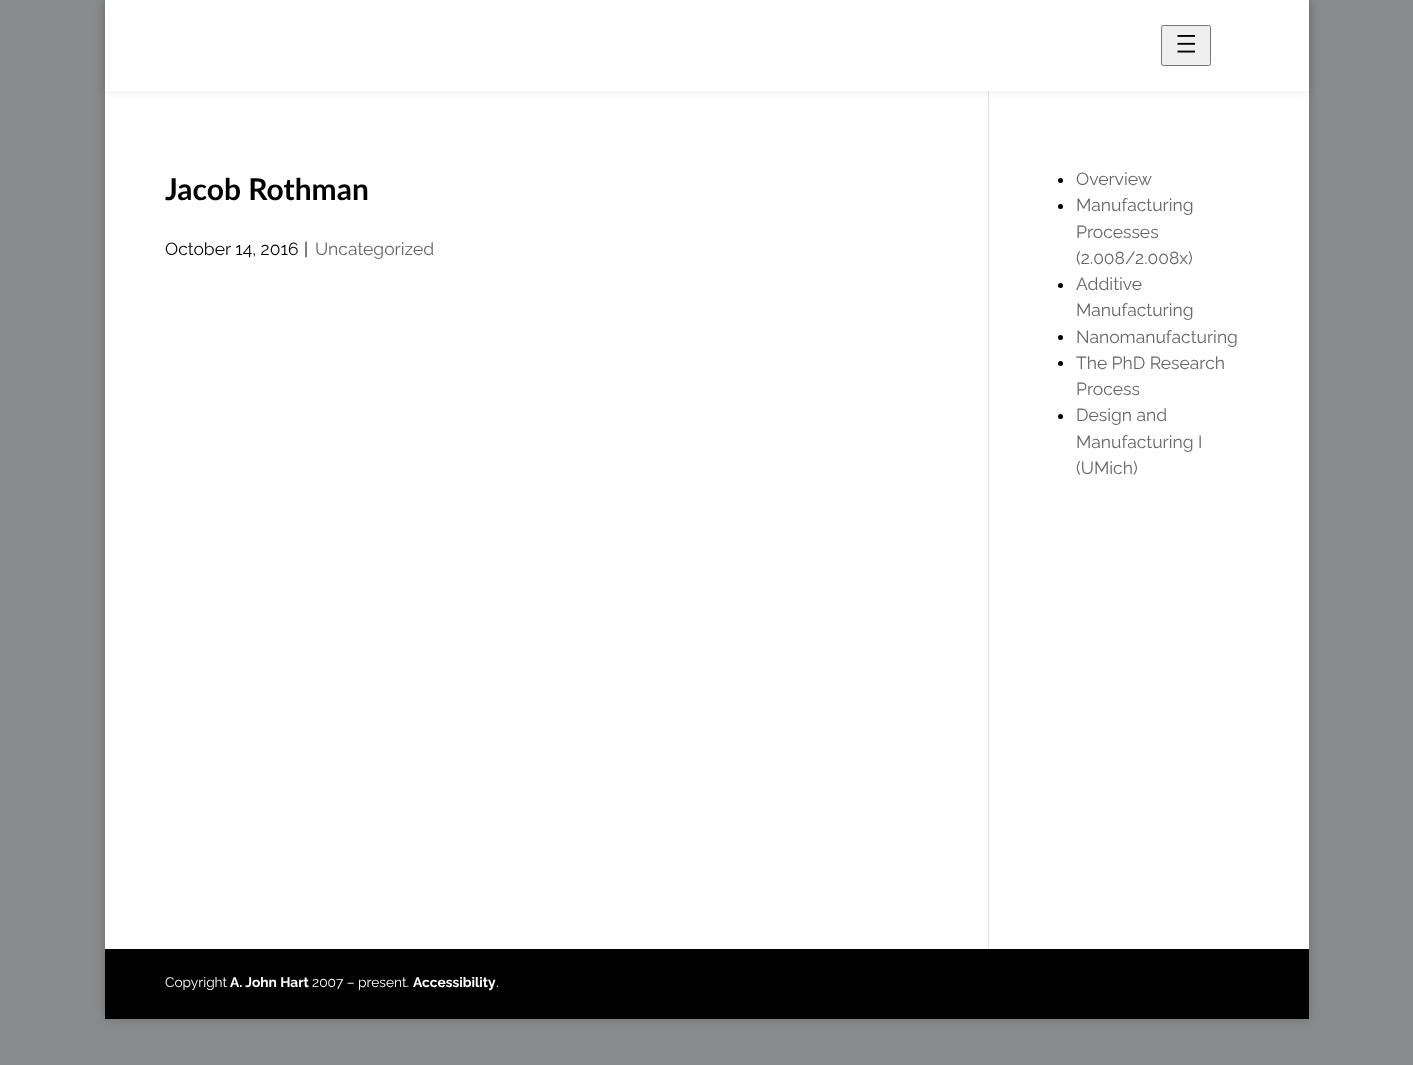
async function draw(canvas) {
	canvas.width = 1413;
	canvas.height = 1065;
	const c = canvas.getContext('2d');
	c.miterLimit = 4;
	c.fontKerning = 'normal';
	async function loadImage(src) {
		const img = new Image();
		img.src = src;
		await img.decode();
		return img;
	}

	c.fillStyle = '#8a8b8c';
	c.fillRect(0, 0, 1413, 1065);
	c.fillStyle = '#00000033';
	c.filter = 'blur(6px)';
	c.beginPath();
	c.rect(105, 0, 1204, 1019);
	c.fill();
	c.filter = 'none';
	c.fillStyle = '#fff';
	c.fillRect(105, 91, 1204, 858);
	c.fillStyle = '#e2e2e2';
	c.fillRect(988, 91, 1, 858);
	c.fillStyle = '#0000001a';
	c.filter = 'blur(4.5px)';
	c.beginPath();
	c.rect(105, 0, 1204, 91);
	c.fill();
	c.filter = 'none';
	c.fillStyle = '#fff';
	c.fillRect(105, 0, 1204, 91);
	c.fillStyle = '#efefef';
	c.beginPath();
	c.roundRect(1161.5, 25.5, 49, 40, 2);
	c.fill();
	c.strokeStyle = '#767676';
	c.stroke();
	c.drawImage(await loadImage('img1.png'), 1177, 35, 18, 18);
	c.font = 'bold 30px Lato';
	c.fillStyle = '#000';
	c.fillText('Jacob Rothman', 165, 200);
	c.font = '17.5px Raleway';
	c.fillText('October 14, 2016', 165, 255);
	c.fillText('|', 304, 255);
	c.fillStyle = '#666';
	c.fillText('Uncategorized', 315, 255);
	c.fillStyle = '#000';
	c.beginPath();
	c.arc(1060.5, 180.5, 2.5, 0, 2 * Math.PI);
	c.fill();
	c.fillStyle = '#666';
	c.fillText('Overview', 1076, 185);
	c.fillStyle = '#000';
	c.beginPath();
	c.arc(1060.5, 206.5, 2.5, 0, 2 * Math.PI);
	c.fill();
	c.fillStyle = '#666';
	for (const [text, x, y] of [
		['Manufacturing', 1076, 211],
		['Processes', 1076, 238],
		['(2.008/2.008x)', 1076, 264],
	]) {
		c.fillText(text, x, y);
	}
	c.fillStyle = '#000';
	c.beginPath();
	c.arc(1060.5, 285.5, 2.5, 0, 2 * Math.PI);
	c.fill();
	c.fillStyle = '#666';
	c.fillText('Additive', 1076, 290);
	c.fillText('Manufacturing', 1076, 316);
	c.fillStyle = '#000';
	c.beginPath();
	c.arc(1060.5, 337.5, 2.5, 0, 2 * Math.PI);
	c.fill();
	c.fillStyle = '#666';
	c.fillText('Nanomanufacturing', 1076, 343);
	c.fillStyle = '#000';
	c.beginPath();
	c.arc(1060.5, 363.5, 2.5, 0, 2 * Math.PI);
	c.fill();
	c.fillStyle = '#666';
	c.fillText('The PhD Research', 1076, 369);
	c.fillText('Process', 1076, 395);
	c.fillStyle = '#000';
	c.beginPath();
	c.arc(1060.5, 416.5, 2.5, 0, 2 * Math.PI);
	c.fill();
	c.fillStyle = '#666';
	for (const [text, x, y] of [
		['Design and', 1076, 421],
		['Manufacturing I', 1076, 448],
		['(UMich)', 1076, 474],
	]) {
		c.fillText(text, x, y);
	}
	c.fillStyle = '#000';
	c.fillRect(105, 949, 1204, 70);
	c.font = '13.75px Raleway';
	c.fillStyle = '#fff';
	c.fillText('Copyright', 165, 987);
	c.font = 'bold 13.75px Raleway';
	c.fillText('A. John Hart', 230, 987);
	c.font = '13.75px Raleway';
	c.fillText('2007 – present.', 312, 987);
	c.font = 'bold 13.75px Raleway';
	c.fillText('Accessibility', 413, 987);
	c.font = '13.75px Raleway';
	c.fillText('.', 496, 987);
}

draw(document.querySelector('canvas'));
